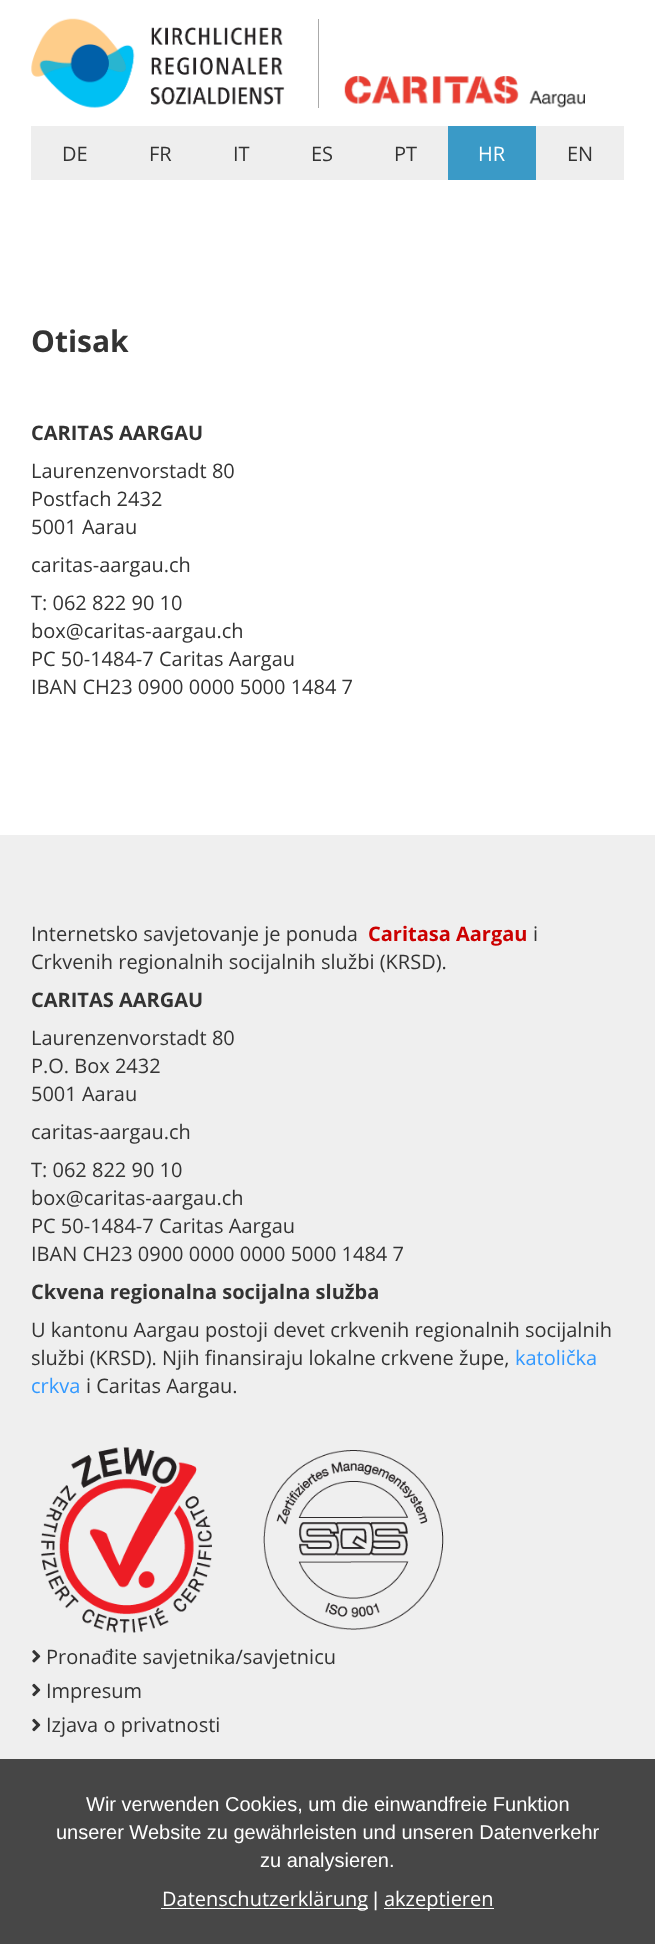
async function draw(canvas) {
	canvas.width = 655;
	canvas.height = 1944;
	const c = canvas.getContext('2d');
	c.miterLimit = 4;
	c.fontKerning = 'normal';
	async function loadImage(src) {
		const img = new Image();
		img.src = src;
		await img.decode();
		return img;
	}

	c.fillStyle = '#fff';
	c.fillRect(0, 0, 655, 1944);
	c.fillStyle = '#aaa';
	c.fillRect(318, 19, 1, 89);
	c.drawImage(await loadImage('img1.png'), 31, 18, 254, 90);
	c.drawImage(await loadImage('img2.png'), 344, 76, 241, 32);
	c.fillStyle = '#eee';
	c.fillRect(31, 126, 417, 54);
	c.font = '20px Open Sans';
	c.fillStyle = '#333';
	for (const [text, x, y] of [
		['DE', 62, 161],
		['FR', 149, 161],
		['IT', 233, 161],
		['ES', 311, 161],
		['PT', 394, 161],
	]) {
		c.fillText(text, x, y);
	}
	c.fillStyle = '#3a9ac7';
	c.fillRect(448, 126, 88, 54);
	c.fillStyle = '#fff';
	c.fillText('HR', 478, 161);
	c.fillStyle = '#eee';
	c.fillRect(536, 126, 88, 54);
	c.fillStyle = '#333';
	c.fillText('EN', 567, 161);
	c.font = 'bold 30px Open Sans';
	c.fillText('Otisak', 31, 352);
	c.font = 'bold 20px Open Sans';
	c.fillText('CARITAS AARGAU', 31, 440);
	c.font = '20px Open Sans';
	for (const [text, x, y] of [
		['Laurenzenvorstadt 80', 31, 478],
		['Postfach 2432', 31, 506],
		['5001 Aarau', 31, 534],
		['caritas-aargau.ch', 31, 572],
		['T: 062 822 90 10', 31, 610],
		['box@caritas-aargau.ch', 31, 638],
		['PC 50-1484-7 Caritas Aargau', 31, 666],
		['IBAN CH23 0900 0000 5000 1484 7', 31, 694],
	]) {
		c.fillText(text, x, y);
	}
	c.fillStyle = '#efefef';
	c.fillRect(0, 835, 655, 995);
	c.fillStyle = '#333';
	c.fillText('Internetsko savjetovanje je ponuda', 31, 941);
	c.font = 'bold 20px Open Sans';
	c.fillStyle = '#c00';
	c.fillText('Caritasa Aargau', 368, 941);
	c.font = '20px Open Sans';
	c.fillStyle = '#333';
	c.fillText('i', 533, 941);
	c.fillText('Crkvenih regionalnih socijalnih službi (KRSD).', 31, 969);
	c.font = 'bold 20px Open Sans';
	c.fillText('CARITAS AARGAU', 31, 1007);
	c.font = '20px Open Sans';
	for (const [text, x, y] of [
		['Laurenzenvorstadt 80', 31, 1045],
		['P.O. Box 2432', 31, 1073],
		['5001 Aarau', 31, 1101],
		['caritas-aargau.ch', 31, 1139],
		['T: 062 822 90 10', 31, 1177],
		['box@caritas-aargau.ch', 31, 1205],
		['PC 50-1484-7 Caritas Aargau', 31, 1233],
		['IBAN CH23 0900 0000 0000 5000 1484 7', 31, 1261],
	]) {
		c.fillText(text, x, y);
	}
	c.font = 'bold 20px Open Sans';
	c.fillText('Ckvena regionalna socijalna služba', 31, 1299);
	c.font = '20px Open Sans';
	c.fillText('U kantonu Aargau postoji devet crkvenih regionalnih socijalnih', 31, 1337);
	c.fillText('službi (KRSD). Njih finansiraju lokalne crkvene župe,', 31, 1365);
	c.fillStyle = '#39f';
	c.fillText('katolička', 515, 1365);
	c.fillText('crkva', 31, 1393);
	c.fillStyle = '#333';
	c.fillText('i Caritas Aargau.', 86, 1393);
	c.drawImage(await loadImage('img3.png'), 41, 1447, 403, 186);
	c.drawImage(await loadImage('img4.png'), 32, 1650, 9, 13);
	c.fillText('Pronađite savjetnika/savjetnicu', 46, 1664);
	c.drawImage(await loadImage('img5.png'), 32, 1683, 9, 14);
	c.fillText('Impresum', 46, 1698);
	c.drawImage(await loadImage('img5.png'), 32, 1718, 9, 14);
	c.fillText('Izjava o privatnosti', 46, 1732);
	c.fillStyle = '#393939ed';
	c.fillRect(0, 1759, 655, 185);
	c.font = '20px Liberation Sans';
	c.fillStyle = '#fff';
	for (const [text, x, y] of [
		['Wir verwenden Cookies, um die einwandfreie Funktion', 86, 1811],
		['unserer Website zu gewährleisten und unseren Datenverkehr', 56, 1839],
		['zu analysieren.', 260, 1867],
	]) {
		c.fillText(text, x, y);
	}
	c.fillRect(161, 1908, 207, 1);
	c.font = '20px Open Sans';
	c.fillText('Datenschutzerklärung', 162, 1906);
	c.font = '20px Liberation Sans';
	c.fillText('|', 373, 1906);
	c.fillRect(384, 1908, 110, 1);
	c.font = '20px Open Sans';
	c.fillText('akzeptieren', 384, 1906);
}

draw(document.querySelector('canvas'));
